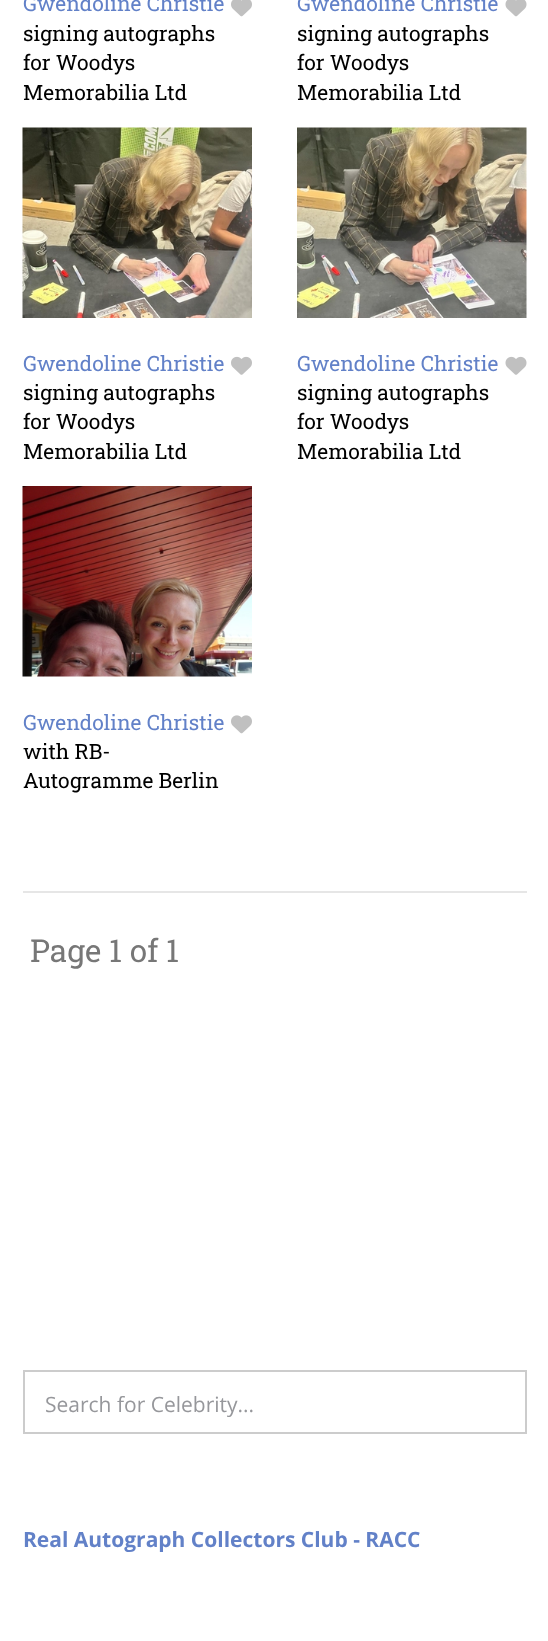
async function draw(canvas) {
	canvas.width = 548;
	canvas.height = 1641;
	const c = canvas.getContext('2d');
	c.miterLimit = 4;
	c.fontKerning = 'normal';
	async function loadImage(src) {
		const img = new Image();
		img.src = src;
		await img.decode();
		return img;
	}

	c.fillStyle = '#fff';
	c.fillRect(0, 0, 548, 1641);
	c.font = '21px Roboto Slab';
	c.fillStyle = '#6281c8';
	c.fillText('Gwendoline Christie', 23, 11);
	c.fillStyle = '#000';
	for (const [text, x, y] of [
		['signing autographs', 23, 41],
		['for Woodys', 23, 70],
		['Memorabilia Ltd', 23, 100],
	]) {
		c.fillText(text, x, y);
	}
	c.drawImage(await loadImage('img1.png'), 231, 0, 21, 17);
	c.fillStyle = '#6281c8';
	c.fillText('Gwendoline Christie', 297, 11);
	c.fillStyle = '#000';
	for (const [text, x, y] of [
		['signing autographs', 297, 41],
		['for Woodys', 297, 70],
		['Memorabilia Ltd', 297, 100],
	]) {
		c.fillText(text, x, y);
	}
	c.drawImage(await loadImage('img2.png'), 505, 0, 22, 17);
	c.drawImage(await loadImage('img3.png'), 22, 127, 230, 191);
	c.fillStyle = '#6281c8';
	c.fillText('Gwendoline Christie', 23, 371);
	c.fillStyle = '#000';
	for (const [text, x, y] of [
		['signing autographs', 23, 400],
		['for Woodys', 23, 429],
		['Memorabilia Ltd', 23, 459],
	]) {
		c.fillText(text, x, y);
	}
	c.drawImage(await loadImage('img4.png'), 231, 356, 21, 19);
	c.drawImage(await loadImage('img5.png'), 297, 127, 230, 191);
	c.fillStyle = '#6281c8';
	c.fillText('Gwendoline Christie', 297, 371);
	c.fillStyle = '#000';
	for (const [text, x, y] of [
		['signing autographs', 297, 400],
		['for Woodys', 297, 429],
		['Memorabilia Ltd', 297, 459],
	]) {
		c.fillText(text, x, y);
	}
	c.drawImage(await loadImage('img6.png'), 505, 356, 22, 19);
	c.drawImage(await loadImage('img7.png'), 22, 486, 230, 191);
	c.fillStyle = '#6281c8';
	c.fillText('Gwendoline Christie', 23, 730);
	c.fillStyle = '#000';
	c.fillText('with RB-', 23, 759);
	c.fillText('Autogramme Berlin', 23, 788);
	c.drawImage(await loadImage('img8.png'), 231, 715, 21, 19);
	c.fillStyle = '#e6e6e6';
	c.fillRect(23, 891, 504, 2);
	c.font = '31.5px Roboto Slab';
	c.fillStyle = '#777';
	c.fillText('Page 1 of 1', 30, 962);
	c.strokeStyle = '#ccc';
	c.lineWidth = 2;
	c.strokeRect(24, 1371, 502, 62);
	c.font = '21px Open Sans';
	c.fillStyle = '#96979b';
	c.fillText('Search for Celebrity...', 45, 1412);
	c.font = 'bold 21px Open Sans';
	c.fillStyle = '#6281c8';
	c.fillText('Real Autograph Collectors Club - RACC', 23, 1547);
}

draw(document.querySelector('canvas'));
